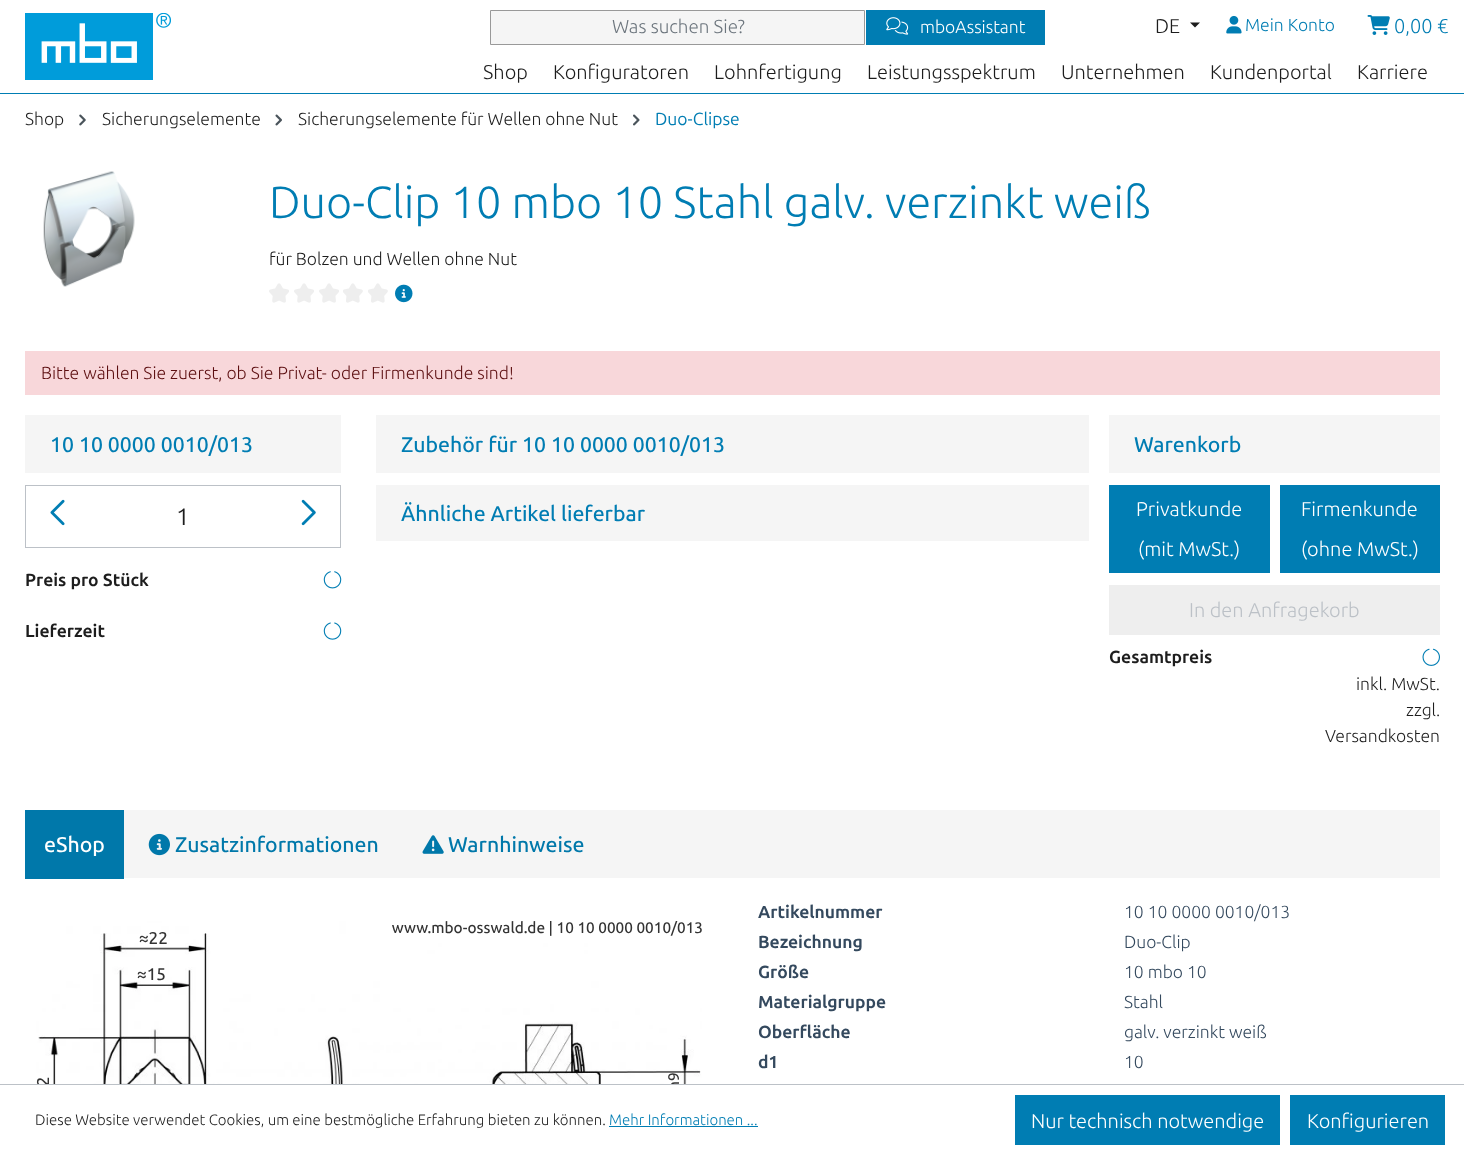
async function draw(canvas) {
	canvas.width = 1464;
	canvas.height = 1155;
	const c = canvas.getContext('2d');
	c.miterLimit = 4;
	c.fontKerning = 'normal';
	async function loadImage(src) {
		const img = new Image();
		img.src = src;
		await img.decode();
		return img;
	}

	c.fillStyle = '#fff';
	c.fillRect(0, 0, 1464, 1155);
	c.fillStyle = '#007db3';
	c.fillRect(0, 93, 1464, 1);
	c.drawImage(await loadImage('img1.png'), 25, 13, 146, 67);
	c.fillStyle = '#f5f5f5';
	c.beginPath();
	c.rect(490.5, 10.5, 374, 34);
	c.fill();
	c.strokeStyle = '#999';
	c.stroke();
	c.font = '300 18.75px Ubuntu';
	c.fillStyle = '#6c757d';
	c.fillText('Was suchen Sie?', 612, 33);
	c.fillStyle = '#007db3';
	c.fillRect(866, 10, 179, 35);
	c.drawImage(await loadImage('img2.png'), 886, 17, 23, 18);
	c.font = '300 17.5px Ubuntu';
	c.fillStyle = '#fff';
	c.fillText('mboAssistant', 920, 33);
	c.font = '300 20px Ubuntu';
	c.fillStyle = '#1d1d1d';
	c.fillText('DE', 1155, 33);
	c.beginPath();
	c.moveTo(1190, 22.5);
	c.lineTo(1200, 22.5);
	c.lineTo(1195, 27.5);
	c.closePath();
	c.fill();
	c.drawImage(await loadImage('img3.png'), 1226, 15, 16, 19);
	c.font = '300 17.5px Ubuntu';
	c.fillStyle = '#007db3';
	c.fillText('Mein Konto', 1245, 31);
	c.drawImage(await loadImage('img4.png'), 1367, 15, 23, 20);
	c.font = '300 20px Ubuntu';
	c.fillText('0,00 €', 1394, 33);
	c.fillStyle = '#1d1d1d';
	for (const [text, x, y] of [
		['Shop', 483, 79],
		['Konfiguratoren', 553, 79],
		['Lohnfertigung', 714, 79],
		['Leistungsspektrum', 867, 79],
		['Unternehmen', 1061, 79],
		['Kundenportal', 1210, 79],
		['Karriere', 1357, 79],
	]) {
		c.fillText(text, x, y);
	}
	c.font = '300 17.5px Ubuntu';
	c.fillText('Shop', 25, 125);
	c.drawImage(await loadImage('img5.png'), 79, 114, 7, 12);
	c.fillText('Sicherungselemente', 102, 125);
	c.drawImage(await loadImage('img6.png'), 275, 114, 7, 12);
	c.fillText('Sicherungselemente für Wellen ohne Nut', 298, 125);
	c.drawImage(await loadImage('img7.png'), 633, 114, 7, 12);
	c.font = '17.5px Ubuntu';
	c.fillStyle = '#007db3';
	c.fillText('Duo-Clipse', 655, 125);
	c.drawImage(await loadImage('img8.png'), 43, 171, 92, 116);
	c.font = '300 45px Ubuntu';
	c.fillText('Duo-Clip 10 mbo 10 Stahl galv. verzinkt weiß', 269, 218);
	c.font = '300 17.5px Ubuntu';
	c.fillStyle = '#1d1d1d';
	c.fillText('für Bolzen und Wellen ohne Nut', 269, 265);
	c.drawImage(await loadImage('img9.png'), 269, 283, 20, 20);
	c.drawImage(await loadImage('img9.png'), 294, 283, 20, 20);
	c.drawImage(await loadImage('img9.png'), 319, 283, 20, 20);
	c.drawImage(await loadImage('img10.png'), 343, 283, 20, 20);
	c.drawImage(await loadImage('img10.png'), 368, 283, 20, 20);
	c.drawImage(await loadImage('img11.png'), 395, 284, 18, 19);
	c.fillStyle = '#f8d7da';
	c.fillRect(25, 351, 1415, 44);
	c.fillStyle = '#5c0e10';
	c.fillText('Bitte wählen Sie zuerst, ob Sie Privat- oder Firmenkunde sind!', 41, 379);
	c.fillStyle = '#f5f5f5';
	c.fillRect(25, 415, 316, 58);
	c.font = '500 21.25px Ubuntu';
	c.fillStyle = '#007db3';
	c.fillText('10 10 0000 0010/013', 50, 452);
	c.strokeStyle = '#bcc1c7';
	c.strokeRect(25.5, 485.5, 315, 62);
	c.drawImage(await loadImage('img12.png'), 50, 499, 15, 27);
	c.font = '24px Ubuntu';
	c.fillStyle = '#1d1d1d';
	c.fillText('1', 176, 525);
	c.drawImage(await loadImage('img13.png'), 301, 499, 15, 27);
	c.font = 'bold 17.5px Ubuntu';
	c.fillText('Preis pro Stück', 25, 586);
	c.drawImage(await loadImage('img14.png'), 323, 571, 19, 18);
	c.fillText('Lieferzeit', 25, 637);
	c.drawImage(await loadImage('img15.png'), 323, 622, 19, 18);
	c.fillStyle = '#f5f5f5';
	c.fillRect(376, 415, 713, 58);
	c.font = '500 21.25px Ubuntu';
	c.fillStyle = '#007db3';
	c.fillText('Zubehör für 10 10 0000 0010/013', 401, 452);
	c.fillStyle = '#f5f5f5';
	c.fillRect(376, 485, 713, 56);
	c.fillStyle = '#007db3';
	c.fillText('Ähnliche Artikel lieferbar', 401, 521);
	c.fillStyle = '#f5f5f5';
	c.fillRect(1109, 415, 331, 58);
	c.fillStyle = '#007db3';
	c.fillText('Warenkorb', 1134, 452);
	c.fillRect(1109, 485, 161, 88);
	c.font = '300 20px Ubuntu';
	c.fillStyle = '#fff';
	c.fillText('Privatkunde', 1136, 516);
	c.fillText('(mit MwSt.)', 1138, 556);
	c.fillStyle = '#007db3';
	c.fillRect(1280, 485, 160, 88);
	c.fillStyle = '#fff';
	c.fillText('Firmenkunde', 1301, 516);
	c.fillText('(ohne MwSt.)', 1301, 556);
	c.fillStyle = '#eee';
	c.fillRect(1109, 585, 331, 50);
	c.fillStyle = '#bcc1c7';
	c.fillText('In den Anfragekorb', 1189, 617);
	c.font = 'bold 17.5px Ubuntu';
	c.fillStyle = '#1d1d1d';
	c.fillText('Gesamtpreis', 1109, 663);
	c.drawImage(await loadImage('img16.png'), 1422, 648, 18, 18);
	c.font = '300 17.5px Ubuntu';
	for (const [text, x, y] of [
		['inkl. MwSt.', 1356, 690],
		['zzgl.', 1406, 716],
		['Versandkosten', 1325, 742],
	]) {
		c.fillText(text, x, y);
	}
	c.fillStyle = '#f5f5f5';
	c.fillRect(124, 810, 1316, 68);
	c.fillStyle = '#0078aa';
	c.fillRect(25, 810, 99, 69);
	c.font = '500 21.25px Ubuntu';
	c.fillStyle = '#fff';
	c.fillText('eShop', 44, 852);
	c.drawImage(await loadImage('img17.png'), 148, 833, 22, 23);
	c.fillStyle = '#0078aa';
	c.fillText('Zusatzinformationen', 175, 852);
	c.drawImage(await loadImage('img18.png'), 422, 835, 22, 19);
	c.fillText('Warnhinweise', 448, 852);
	c.drawImage(await loadImage('img19.png'), 36, 921, 666, 163);
	c.font = 'bold 17.5px Ubuntu';
	c.fillStyle = '#34495e';
	c.fillText('Artikelnummer', 758, 918);
	c.font = '300 17.5px Ubuntu';
	c.fillText('10 10 0000 0010/013', 1124, 918);
	c.font = 'bold 17.5px Ubuntu';
	c.fillText('Bezeichnung', 758, 948);
	c.font = '300 17.5px Ubuntu';
	c.fillText('Duo-Clip', 1124, 948);
	c.font = 'bold 17.5px Ubuntu';
	c.fillText('Größe', 758, 978);
	c.font = '300 17.5px Ubuntu';
	c.fillText('10 mbo 10', 1124, 978);
	c.font = 'bold 17.5px Ubuntu';
	c.fillText('Materialgruppe', 758, 1008);
	c.font = '300 17.5px Ubuntu';
	c.fillText('Stahl', 1124, 1008);
	c.font = 'bold 17.5px Ubuntu';
	c.fillText('Oberfläche', 758, 1038);
	c.font = '300 17.5px Ubuntu';
	c.fillText('galv. verzinkt weiß', 1124, 1038);
	c.font = 'bold 17.5px Ubuntu';
	c.fillText('d1', 758, 1068);
	c.font = '300 17.5px Ubuntu';
	c.fillText('10', 1124, 1068);
	c.fillStyle = '#bcc1c7';
	c.fillRect(0, 1084, 1464, 1);
	c.font = '300 15px Ubuntu';
	c.fillStyle = '#1d1d1d';
	c.fillText('Diese Website verwendet Cookies, um eine bestmögliche Erfahrung bieten zu können.', 35, 1125);
	c.fillStyle = '#007db3';
	c.fillText('Mehr Informationen ...', 609, 1125);
	c.fillRect(609, 1126, 149, 1);
	c.fillRect(1015, 1095, 265, 50);
	c.font = '300 20px Ubuntu';
	c.fillStyle = '#fff';
	c.fillText('Nur technisch notwendige', 1031, 1128);
	c.fillStyle = '#007db3';
	c.fillRect(1290, 1095, 155, 50);
	c.fillStyle = '#fff';
	c.fillText('Konfigurieren', 1307, 1128);
}

draw(document.querySelector('canvas'));
